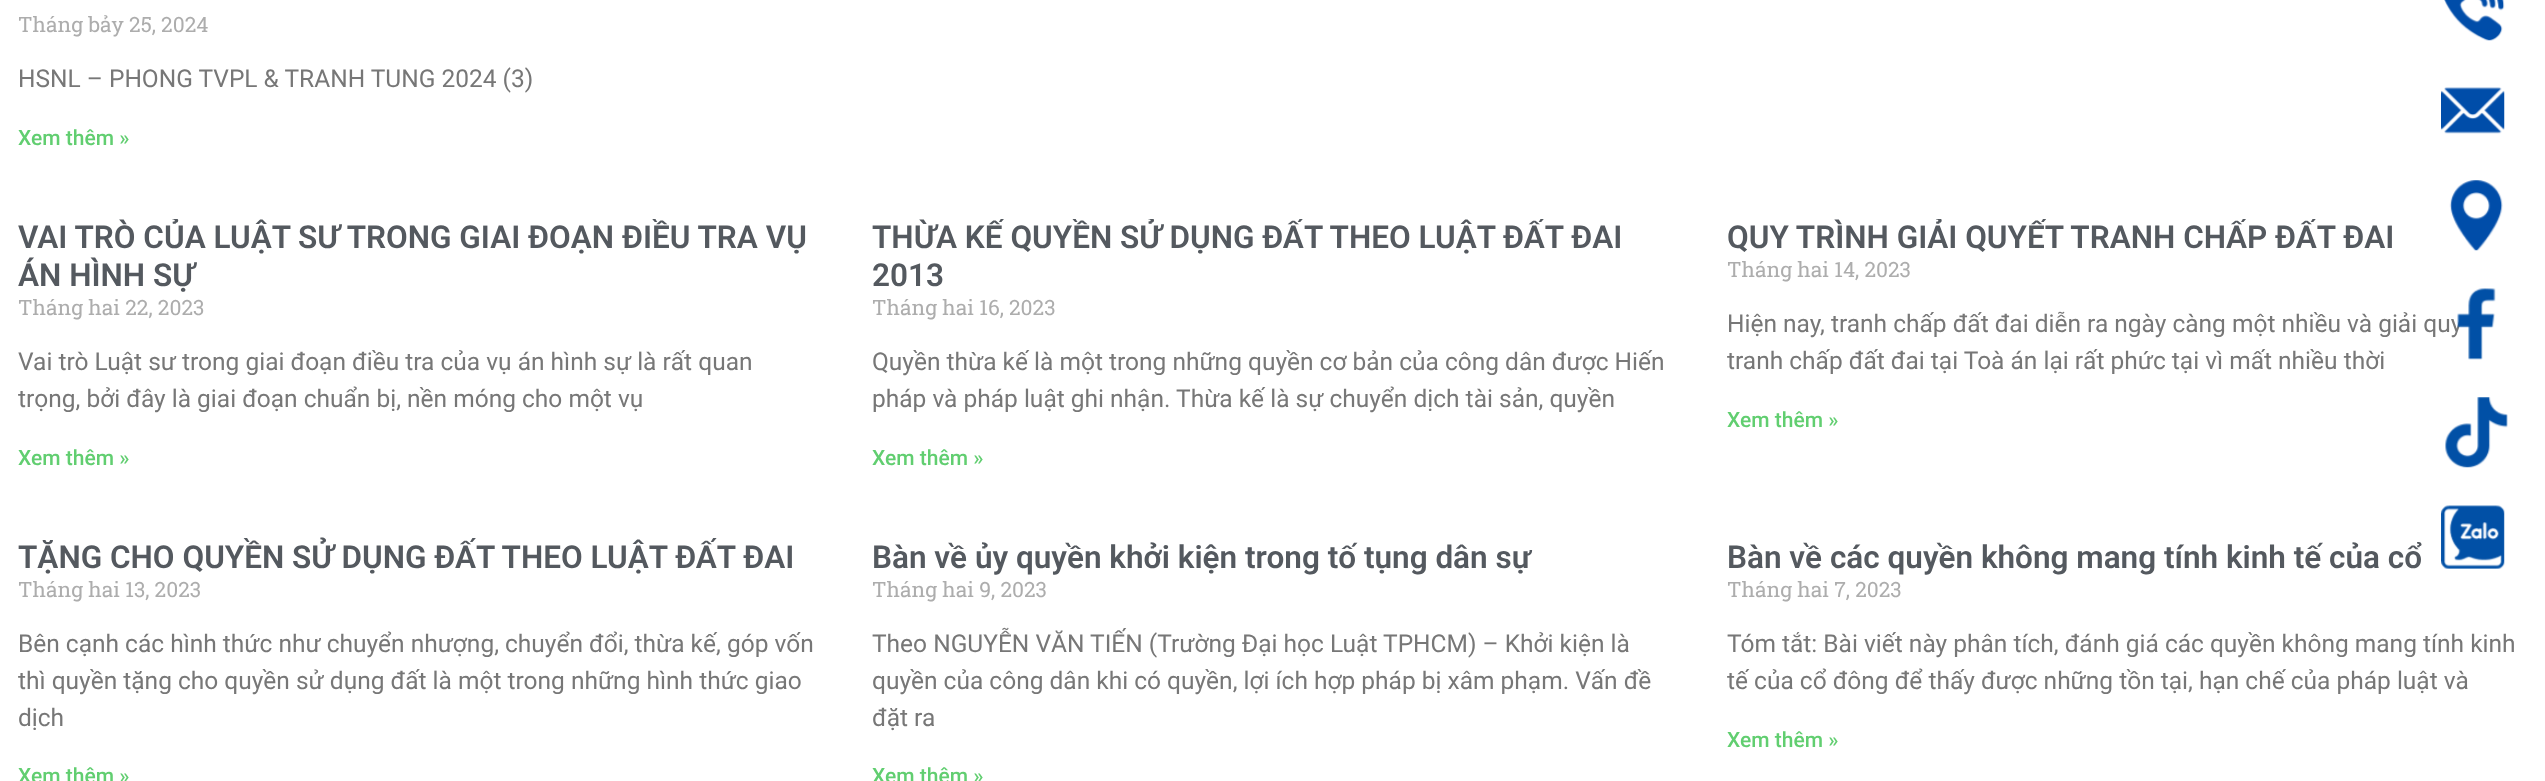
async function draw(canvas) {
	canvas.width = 2545;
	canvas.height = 781;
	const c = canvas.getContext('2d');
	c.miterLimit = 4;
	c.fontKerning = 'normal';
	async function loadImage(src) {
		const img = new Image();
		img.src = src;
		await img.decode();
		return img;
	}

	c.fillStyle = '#fff';
	c.fillRect(0, 0, 2545, 781);
	c.drawImage(await loadImage('img1.png'), 2444, 0, 61, 41);
	c.drawImage(await loadImage('img2.png'), 2441, 87, 64, 47);
	c.drawImage(await loadImage('img3.png'), 2449, 180, 54, 71);
	c.font = '24.5px Roboto';
	c.fillStyle = '#777';
	c.fillText('Hiện nay, tranh chấp đất đai diễn ra ngày càng một nhiều và giải quy', 1727, 332);
	c.drawImage(await loadImage('img4.png'), 2457, 288, 39, 72);
	c.drawImage(await loadImage('img5.png'), 2445, 397, 63, 71);
	c.drawImage(await loadImage('img6.png'), 2441, 505, 64, 64);
	c.font = '21px Roboto Slab';
	c.fillStyle = '#adadad';
	c.fillText('Tháng bảy 25, 2024', 18, 32);
	c.font = '24.5px Roboto';
	c.fillStyle = '#777';
	c.fillText('HSNL – PHONG TVPL & TRANH TUNG 2024 (3)', 18, 87);
	c.font = '500 21px Roboto';
	c.fillStyle = '#61ce70';
	c.fillText('Xem thêm »', 18, 145);
	c.save();
	c.beginPath();
	c.rect(18, 219, 801, 257);
	c.clip();
	c.font = '600 31.5px Roboto';
	c.fillStyle = '#54595f';
	c.fillText('VAI TRÒ CỦA LUẬT SƯ TRONG GIAI ĐOẠN ĐIỀU TRA VỤ', 18, 248);
	c.restore();
	c.font = '600 31.5px Roboto';
	c.fillStyle = '#54595f';
	c.fillText('ÁN HÌNH SỰ', 18, 286);
	c.font = '21px Roboto Slab';
	c.fillStyle = '#adadad';
	c.fillText('Tháng hai 22, 2023', 18, 315);
	c.font = '24.5px Roboto';
	c.fillStyle = '#777';
	c.fillText('Vai trò Luật sư trong giai đoạn điều tra của vụ án hình sự là rất quan', 18, 370);
	c.fillText('trọng, bởi đây là giai đoạn chuẩn bị, nền móng cho một vụ', 18, 407);
	c.font = '500 21px Roboto';
	c.fillStyle = '#61ce70';
	c.fillText('Xem thêm »', 18, 465);
	c.save();
	c.beginPath();
	c.rect(872, 219, 803, 257);
	c.clip();
	c.font = '600 31.5px Roboto';
	c.fillStyle = '#54595f';
	c.fillText('THỪA KẾ QUYỀN SỬ DỤNG ĐẤT THEO LUẬT ĐẤT ĐAI', 872, 248);
	c.restore();
	c.font = '600 31.5px Roboto';
	c.fillStyle = '#54595f';
	c.fillText('2013', 872, 286);
	c.font = '21px Roboto Slab';
	c.fillStyle = '#adadad';
	c.fillText('Tháng hai 16, 2023', 872, 315);
	c.font = '24.5px Roboto';
	c.fillStyle = '#777';
	c.fillText('Quyền thừa kế là một trong những quyền cơ bản của công dân được Hiến', 872, 370);
	c.fillText('pháp và pháp luật ghi nhận. Thừa kế là sự chuyển dịch tài sản, quyền', 872, 407);
	c.font = '500 21px Roboto';
	c.fillStyle = '#61ce70';
	c.fillText('Xem thêm »', 872, 465);
	c.save();
	c.beginPath();
	c.rect(1727, 219, 802, 257);
	c.clip();
	c.font = '600 31.5px Roboto';
	c.fillStyle = '#54595f';
	c.fillText('QUY TRÌNH GIẢI QUYẾT TRANH CHẤP ĐẤT ĐAI', 1727, 248);
	c.restore();
	c.font = '21px Roboto Slab';
	c.fillStyle = '#adadad';
	c.fillText('Tháng hai 14, 2023', 1727, 277);
	c.font = '24.5px Roboto';
	c.fillStyle = '#777';
	c.fillText('tranh chấp đất đai tại Toà án lại rất phức tại vì mất nhiều thời', 1727, 369);
	c.font = '500 21px Roboto';
	c.fillStyle = '#61ce70';
	c.fillText('Xem thêm »', 1727, 427);
	c.font = '600 31.5px Roboto';
	c.fillStyle = '#54595f';
	c.fillText('TẶNG CHO QUYỀN SỬ DỤNG ĐẤT THEO LUẬT ĐẤT ĐAI', 18, 568);
	c.font = '21px Roboto Slab';
	c.fillStyle = '#adadad';
	c.fillText('Tháng hai 13, 2023', 18, 597);
	c.font = '24.5px Roboto';
	c.fillStyle = '#777';
	for (const [text, x, y] of [
		['Bên cạnh các hình thức như chuyển nhượng, chuyển đổi, thừa kế, góp vốn', 18, 652],
		['thì quyền tặng cho quyền sử dụng đất là một trong những hình thức giao', 18, 689],
		['dịch', 18, 726],
	]) {
		c.fillText(text, x, y);
	}
	c.font = '500 21px Roboto';
	c.fillStyle = '#61ce70';
	c.fillText('Xem thêm »', 18, 783);
	c.font = '600 31.5px Roboto';
	c.fillStyle = '#54595f';
	c.fillText('Bàn về ủy quyền khởi kiện trong tố tụng dân sự', 872, 568);
	c.font = '21px Roboto Slab';
	c.fillStyle = '#adadad';
	c.fillText('Tháng hai 9, 2023', 872, 597);
	c.font = '24.5px Roboto';
	c.fillStyle = '#777';
	for (const [text, x, y] of [
		['Theo NGUYỄN VĂN TIẾN (Trường Đại học Luật TPHCM) – Khởi kiện là', 872, 652],
		['quyền của công dân khi có quyền, lợi ích hợp pháp bị xâm phạm. Vấn đề', 872, 689],
		['đặt ra', 872, 726],
	]) {
		c.fillText(text, x, y);
	}
	c.font = '500 21px Roboto';
	c.fillStyle = '#61ce70';
	c.fillText('Xem thêm »', 872, 783);
	c.font = '600 31.5px Roboto';
	c.fillStyle = '#54595f';
	c.fillText('Bàn về các quyền không mang tính kinh tế của cổ', 1727, 568);
	c.font = '21px Roboto Slab';
	c.fillStyle = '#adadad';
	c.fillText('Tháng hai 7, 2023', 1727, 597);
	c.font = '24.5px Roboto';
	c.fillStyle = '#777';
	c.fillText('Tóm tắt: Bài viết này phân tích, đánh giá các quyền không mang tính kinh', 1727, 652);
	c.fillText('tế của cổ đông để thấy được những tồn tại, hạn chế của pháp luật và', 1727, 689);
	c.font = '500 21px Roboto';
	c.fillStyle = '#61ce70';
	c.fillText('Xem thêm »', 1727, 747);
}

draw(document.querySelector('canvas'));
